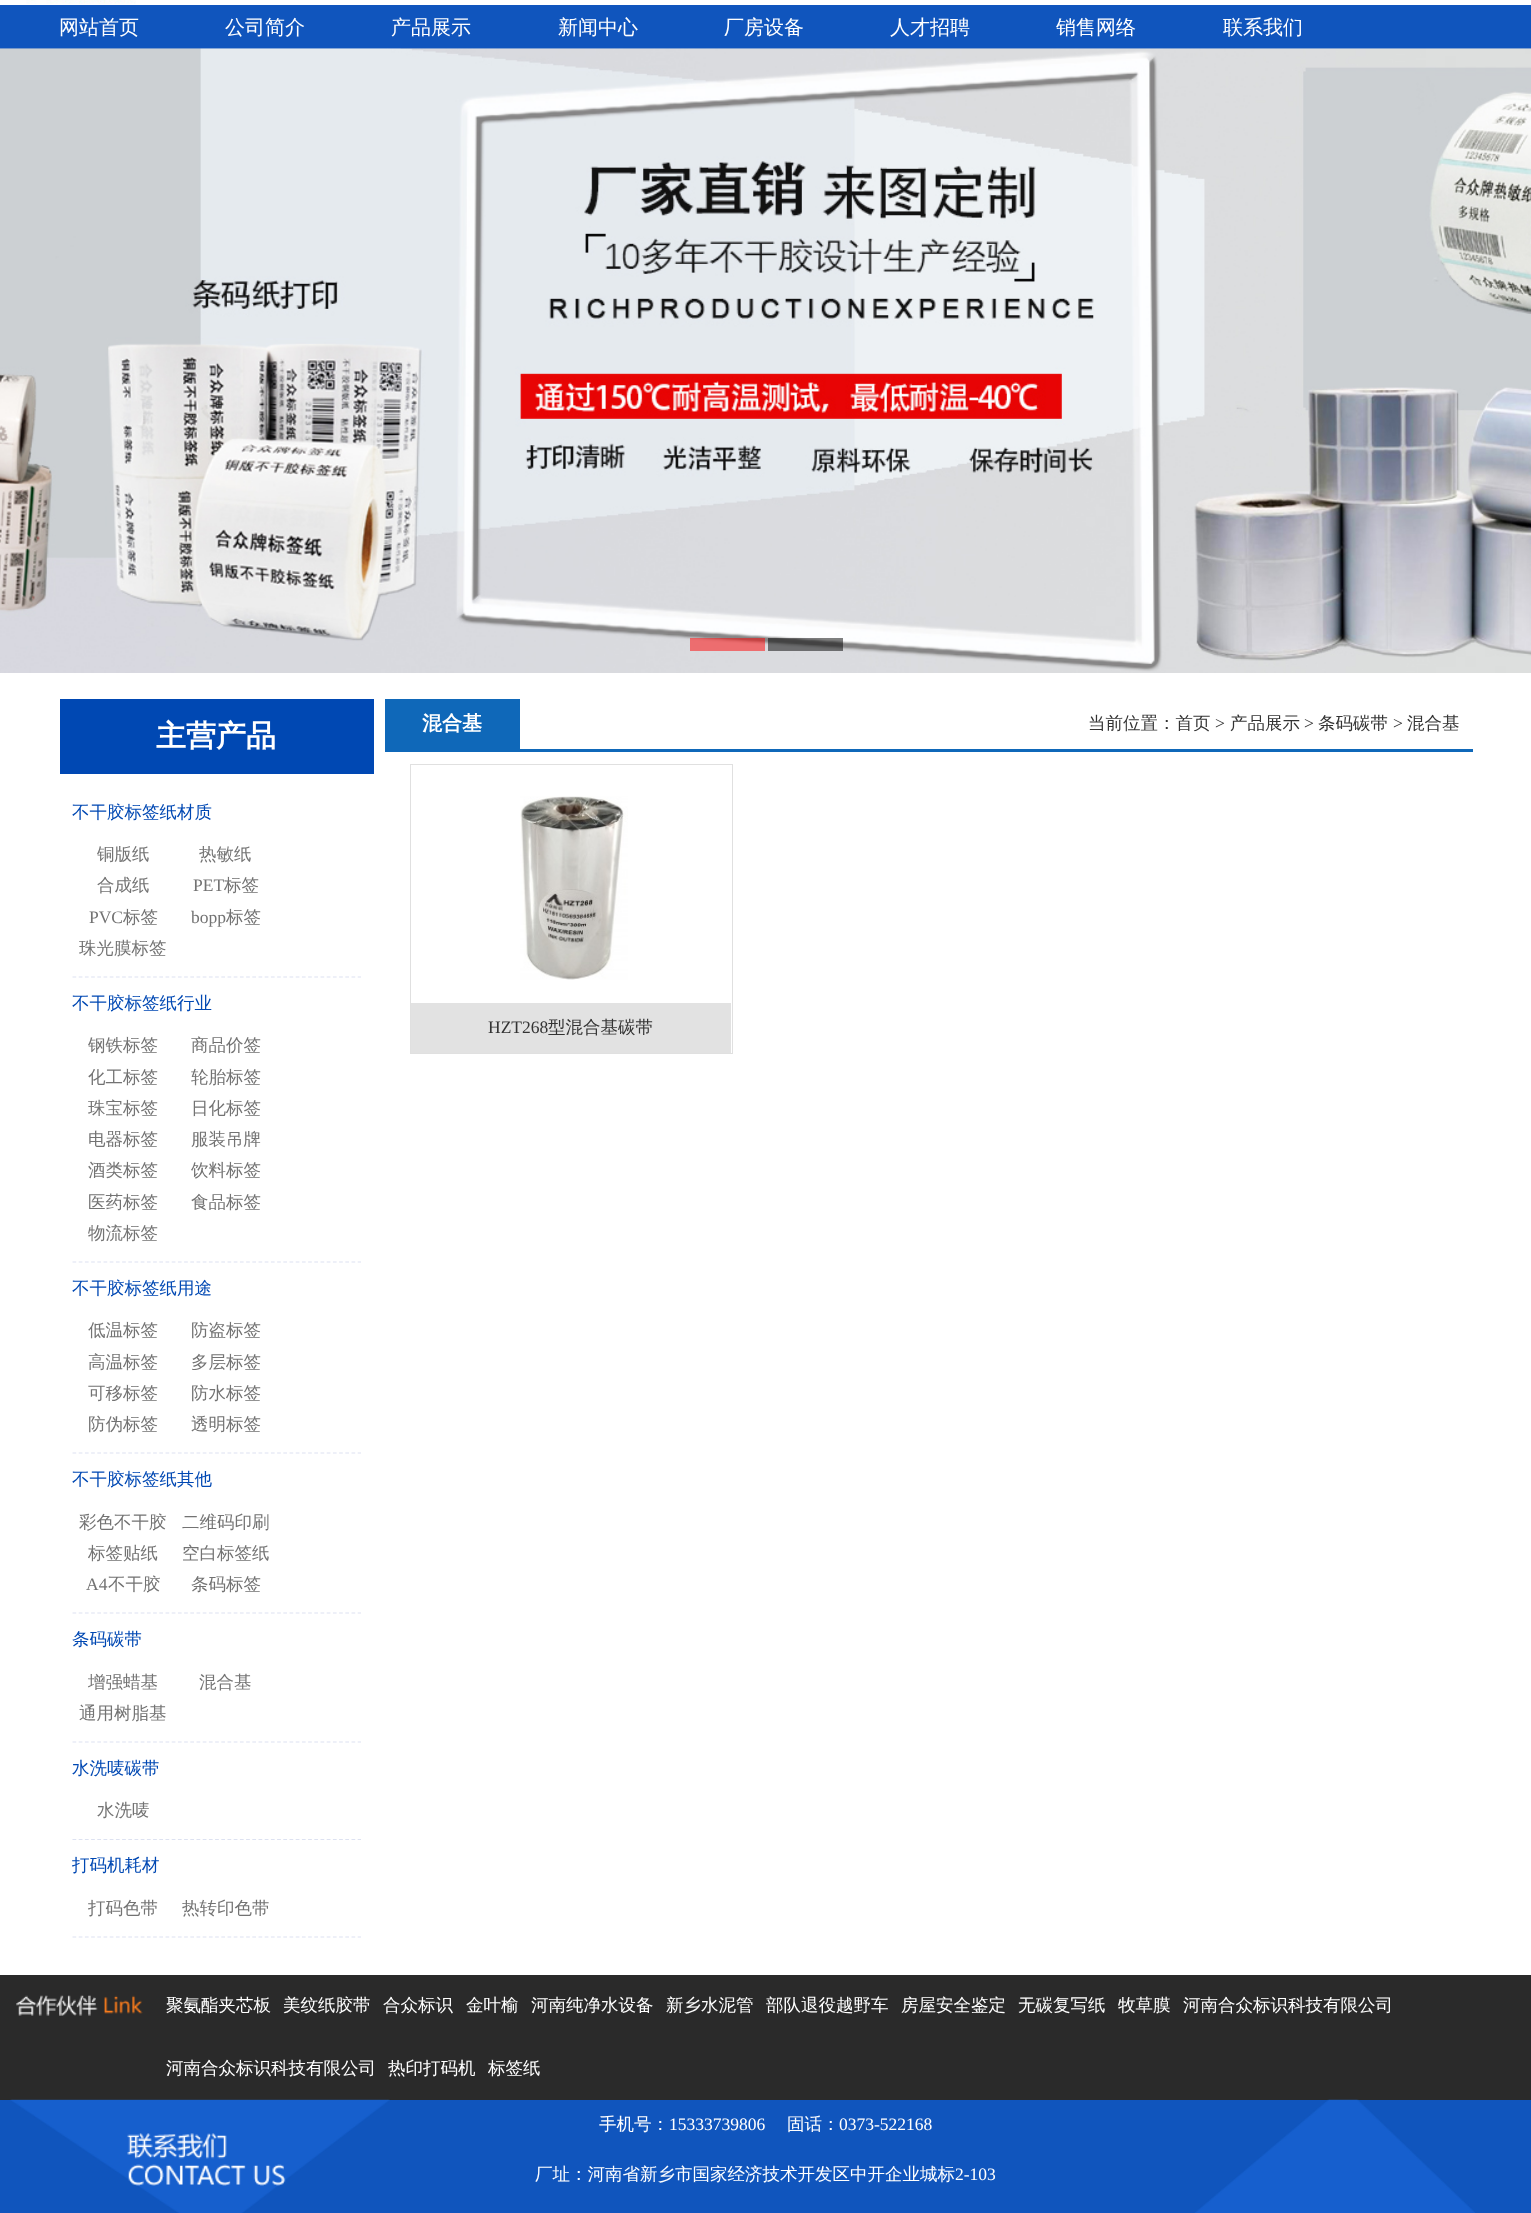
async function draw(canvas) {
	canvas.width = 1531;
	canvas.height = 2213;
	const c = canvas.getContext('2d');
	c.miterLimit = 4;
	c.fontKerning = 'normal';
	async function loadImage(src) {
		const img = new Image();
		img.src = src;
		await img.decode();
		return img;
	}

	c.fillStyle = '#fff';
	c.fillRect(0, 0, 1531, 2213);
	c.drawImage(await loadImage('img1.png'), 26, 0, 110, 4);
	c.fillStyle = '#1055bd';
	c.fillRect(0, 5, 1531, 44);
	c.font = '500 20px WenQuanYi Zen Hei';
	c.fillStyle = '#fff';
	for (const [text, x, y] of [
		['网站首页', 59, 34],
		['公司简介', 225, 34],
		['产品展示', 391, 34],
		['新闻中心', 558, 34],
		['厂房设备', 724, 34],
		['人才招聘', 890, 34],
		['销售网络', 1056, 34],
		['联系我们', 1223, 34],
	]) {
		c.fillText(text, x, y);
	}
	c.drawImage(await loadImage('img2.png'), 0, 48, 1531, 625);
	for (const [x, y, w, h, color] of [
		[690, 638, 75, 13, '#ff000080'],
		[768, 638, 75, 13, '#00000080'],
		[60, 699, 314, 75, '#0048b3'],
	]) {
		c.fillStyle = color;
		c.fillRect(x, y, w, h);
	}
	c.font = 'bold 30px WenQuanYi Zen Hei';
	c.fillStyle = '#fff';
	c.fillText('主营产品', 156, 746);
	c.font = '500 17.5px WenQuanYi Zen Hei';
	c.fillStyle = '#0048b3';
	c.fillText('不干胶标签纸材质', 72, 818);
	c.fillStyle = '#737373';
	for (const [text, x, y] of [
		['铜版纸', 97, 860],
		['热敏纸', 199, 860],
		['合成纸', 97, 891],
	]) {
		c.fillText(text, x, y);
	}
	c.font = '17.5px Liberation Serif';
	c.fillText('PET', 193, 891);
	c.font = '500 17.5px WenQuanYi Zen Hei';
	c.fillText('标签', 224, 891);
	c.font = '17.5px Liberation Serif';
	c.fillText('PVC', 89, 923);
	c.font = '500 17.5px WenQuanYi Zen Hei';
	c.fillText('标签', 123, 923);
	c.font = '17.5px Liberation Serif';
	c.fillText('bopp', 191, 923);
	c.font = '500 17.5px WenQuanYi Zen Hei';
	c.fillText('标签', 226, 923);
	c.fillText('珠光膜标签', 79, 954);
	c.beginPath();
	c.moveTo(72.5, 977);
	c.lineTo(361, 977);
	c.strokeStyle = '#dde2f1';
	c.lineWidth = 1.2;
	c.setLineDash([3.75, 2.45]);
	c.stroke();
	c.fillStyle = '#0048b3';
	c.fillText('不干胶标签纸行业', 72, 1009);
	c.fillStyle = '#737373';
	for (const [text, x, y] of [
		['钢铁标签', 88, 1051],
		['商品价签', 191, 1051],
		['化工标签', 88, 1083],
		['轮胎标签', 191, 1083],
		['珠宝标签', 88, 1114],
		['日化标签', 191, 1114],
		['电器标签', 88, 1145],
		['服装吊牌', 191, 1145],
		['酒类标签', 88, 1176],
		['饮料标签', 191, 1176],
		['医药标签', 88, 1208],
		['食品标签', 191, 1208],
		['物流标签', 88, 1239],
	]) {
		c.fillText(text, x, y);
	}
	c.beginPath();
	c.moveTo(72.5, 1262);
	c.lineTo(361, 1262);
	c.stroke();
	c.fillStyle = '#0048b3';
	c.fillText('不干胶标签纸用途', 72, 1294);
	c.fillStyle = '#737373';
	for (const [text, x, y] of [
		['低温标签', 88, 1336],
		['防盗标签', 191, 1336],
		['高温标签', 88, 1368],
		['多层标签', 191, 1368],
		['可移标签', 88, 1399],
		['防水标签', 191, 1399],
		['防伪标签', 88, 1430],
		['透明标签', 191, 1430],
	]) {
		c.fillText(text, x, y);
	}
	c.beginPath();
	c.moveTo(72.5, 1453);
	c.lineTo(361, 1453);
	c.stroke();
	c.fillStyle = '#0048b3';
	c.fillText('不干胶标签纸其他', 72, 1485);
	c.fillStyle = '#737373';
	for (const [text, x, y] of [
		['彩色不干胶', 79, 1528],
		['二维码印刷', 182, 1528],
		['标签贴纸', 88, 1559],
		['空白标签纸', 182, 1559],
	]) {
		c.fillText(text, x, y);
	}
	c.font = '17.5px Liberation Serif';
	c.fillText('A4', 86, 1590);
	c.font = '500 17.5px WenQuanYi Zen Hei';
	c.fillText('不干胶', 108, 1590);
	c.fillText('条码标签', 191, 1590);
	c.beginPath();
	c.moveTo(72.5, 1613);
	c.lineTo(361, 1613);
	c.stroke();
	c.fillStyle = '#0048b3';
	c.fillText('条码碳带', 72, 1645);
	c.fillStyle = '#737373';
	for (const [text, x, y] of [
		['增强蜡基', 88, 1688],
		['混合基', 199, 1688],
		['通用树脂基', 79, 1719],
	]) {
		c.fillText(text, x, y);
	}
	c.beginPath();
	c.moveTo(72.5, 1742);
	c.lineTo(361, 1742);
	c.stroke();
	c.fillStyle = '#0048b3';
	c.fillText('水洗唛碳带', 72, 1774);
	c.fillStyle = '#737373';
	c.fillText('水洗唛', 97, 1816);
	c.beginPath();
	c.moveTo(72.5, 1839.5);
	c.lineTo(361, 1839.5);
	c.stroke();
	c.fillStyle = '#0048b3';
	c.fillText('打码机耗材', 72, 1871);
	c.fillStyle = '#737373';
	c.fillText('打码色带', 88, 1914);
	c.fillText('热转印色带', 182, 1914);
	c.beginPath();
	c.moveTo(72.5, 1937);
	c.lineTo(361, 1937);
	c.stroke();
	c.fillStyle = '#0f68b9';
	c.fillRect(385, 749, 1088, 3);
	c.fillRect(385, 699, 135, 50);
	c.font = 'bold 20px WenQuanYi Zen Hei';
	c.fillStyle = '#fff';
	c.fillText('混合基', 422, 730);
	c.font = '500 17.5px WenQuanYi Zen Hei';
	c.fillStyle = '#333';
	c.fillText('当前位置：首页', 1088, 729);
	c.font = '17.5px Liberation Serif';
	c.fillText('>', 1215, 729);
	c.font = '500 17.5px WenQuanYi Zen Hei';
	c.fillText('产品展示', 1230, 729);
	c.font = '17.5px Liberation Serif';
	c.fillText('>', 1304, 729);
	c.font = '500 17.5px WenQuanYi Zen Hei';
	c.fillText('条码碳带', 1318, 729);
	c.font = '17.5px Liberation Serif';
	c.fillText('>', 1393, 729);
	c.font = '500 17.5px WenQuanYi Zen Hei';
	c.fillText('混合基', 1407, 729);
	c.strokeStyle = '#e0e0e0';
	c.lineWidth = 1;
	c.setLineDash([]);
	c.strokeRect(410.5, 764.5, 322, 289);
	c.drawImage(await loadImage('img3.png'), 520, 796, 108, 184);
	c.fillStyle = '#e2e2e2';
	c.fillRect(411, 1003, 320, 50);
	c.font = '17.5px Liberation Serif';
	c.fillStyle = '#333';
	c.fillText('HZT268', 488, 1033);
	c.font = '500 17.5px WenQuanYi Zen Hei';
	c.fillText('型混合基碳带', 548, 1033);
	c.fillStyle = '#2a2a2a';
	c.fillRect(0, 1975, 1531, 125);
	c.drawImage(await loadImage('img4.png'), 16, 1995, 127, 21);
	c.fillStyle = '#fff';
	for (const [text, x, y] of [
		['聚氨酯夹芯板', 166, 2011],
		['美纹纸胶带', 283, 2011],
		['合众标识', 383, 2011],
		['金叶榆', 466, 2011],
		['河南纯净水设备', 531, 2011],
		['新乡水泥管', 666, 2011],
		['部队退役越野车', 766, 2011],
		['房屋安全鉴定', 901, 2011],
		['无碳复写纸', 1018, 2011],
		['牧草膜', 1118, 2011],
		['河南合众标识科技有限公司', 1183, 2011],
		['河南合众标识科技有限公司', 166, 2074],
		['热印打码机', 388, 2074],
		['标签纸', 488, 2074],
	]) {
		c.fillText(text, x, y);
	}
	c.fillStyle = '#1055bd';
	c.fillRect(0, 2100, 1531, 113);
	c.drawImage(await loadImage('img5.png'), 10, 2099, 1465, 114);
	c.fillStyle = '#fff';
	c.fillText('手机号：', 599, 2130);
	c.font = '17.5px Liberation Serif';
	c.fillText('15333739806', 669, 2130);
	c.font = '500 17.5px WenQuanYi Zen Hei';
	c.fillText('固话：', 787, 2130);
	c.font = '17.5px Liberation Serif';
	c.fillText('0373-522168', 839, 2130);
	c.font = '500 17.5px WenQuanYi Zen Hei';
	c.fillText('厂址：河南省新乡市国家经济技术开发区中开企业城标', 535, 2180);
	c.font = '17.5px Liberation Serif';
	c.fillText('2-103', 955, 2180);
}

draw(document.querySelector('canvas'));
